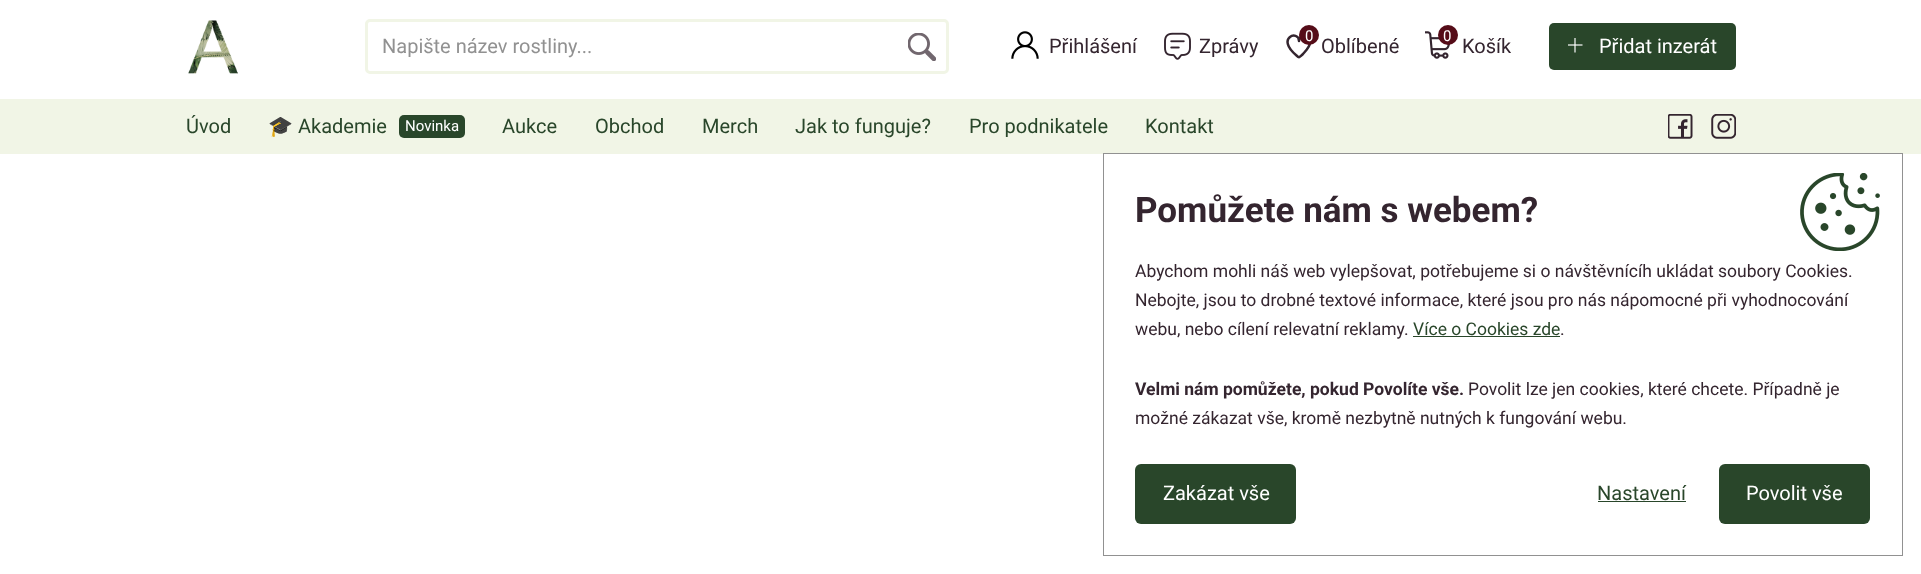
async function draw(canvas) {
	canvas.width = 1921;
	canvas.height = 574;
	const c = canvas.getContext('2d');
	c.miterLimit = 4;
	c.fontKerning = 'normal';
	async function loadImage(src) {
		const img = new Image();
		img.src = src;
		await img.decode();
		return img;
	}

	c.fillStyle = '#fff';
	c.fillRect(0, 0, 1921, 574);
	c.drawImage(await loadImage('img1.png'), 188, 20, 50, 54);
	c.beginPath();
	c.roundRect(366.5, 20.5, 581, 52, 3.5);
	c.strokeStyle = '#f1f5e6';
	c.lineWidth = 3;
	c.stroke();
	c.font = '20px Roboto';
	c.fillStyle = '#919191';
	c.fillText('Napište název rostliny...', 382, 53);
	c.drawImage(await loadImage('img2.png'), 908, 33, 28, 28);
	c.drawImage(await loadImage('img3.png'), 1011, 31, 28, 28);
	c.fillStyle = '#34252f';
	c.fillText('Přihlášení', 1049, 53);
	c.drawImage(await loadImage('img4.png'), 1164, 32, 27, 28);
	c.fillText('Zprávy', 1199, 53);
	c.beginPath();
	c.moveTo(1310, 42.5);
	c.bezierCurveTo(1310, 47, 1305.5, 51, 1303, 54);
	c.bezierCurveTo(1299.5, 57, 1299.5, 58.5, 1296.5, 55.5);
	c.bezierCurveTo(1275, 37.5, 1299, 29.5, 1299, 41);
	c.bezierCurveTo(1299, 34, 1310, 33.5, 1310, 42.5);
	c.closePath();
	c.strokeStyle = '#34252f';
	c.lineWidth = 2.5;
	c.lineCap = 'round';
	c.lineJoin = 'round';
	c.stroke();
	c.fillStyle = '#550c18';
	c.beginPath();
	c.arc(1309, 35, 10, 0, 2 * Math.PI);
	c.fill();
	c.font = '15px Roboto';
	c.fillStyle = '#fff';
	c.fillText('0', 1305, 41);
	c.font = '20px Roboto';
	c.fillStyle = '#34252f';
	c.fillText('Oblíbené', 1321, 53);
	c.drawImage(await loadImage('img5.png'), 1425, 31, 26, 28);
	c.fillStyle = '#550c18';
	c.beginPath();
	c.arc(1448, 35, 10, 0, 2 * Math.PI);
	c.fill();
	c.font = '15px Roboto';
	c.fillStyle = '#fff';
	c.fillText('0', 1443, 41);
	c.font = '20px Roboto';
	c.fillStyle = '#34252f';
	c.fillText('Košík', 1462, 53);
	c.fillStyle = '#29462a';
	c.beginPath();
	c.roundRect(1549, 23, 187, 47, 5);
	c.fill();
	c.drawImage(await loadImage('img6.png'), 1568, 38, 15, 15);
	c.fillStyle = '#fff';
	c.fillText('Přidat inzerát', 1599, 53);
	c.fillStyle = '#f1f5e6';
	c.fillRect(0, 99, 1921, 55);
	c.fillStyle = '#29462a';
	c.fillText('Úvod', 186, 133);
	c.font = '20px Noto Color Emoji';
	c.fillText('🎓', 268, 133);
	c.font = '20px Roboto';
	c.fillText('Akademie', 298, 133);
	c.beginPath();
	c.roundRect(399, 115, 66, 23, 5);
	c.fill();
	c.font = '15px Roboto';
	c.fillStyle = '#fff';
	c.fillText('Novinka', 405, 131);
	c.font = '20px Roboto';
	c.fillStyle = '#29462a';
	for (const [text, x, y] of [
		['Aukce', 502, 133],
		['Obchod', 595, 133],
		['Merch', 702, 133],
		['Jak to funguje?', 795, 133],
		['Pro podnikatele', 969, 133],
		['Kontakt', 1145, 133],
	]) {
		c.fillText(text, x, y);
	}
	c.drawImage(await loadImage('img7.png'), 1668, 114, 25, 25);
	c.drawImage(await loadImage('img8.png'), 1711, 114, 25, 25);
	c.drawImage(await loadImage('img9.png'), 1800, 173, 80, 78);
	c.strokeStyle = '#919191';
	c.lineWidth = 1;
	c.lineJoin = 'miter';
	c.strokeRect(1103.5, 153.5, 799, 402);
	c.font = 'bold 35px Roboto';
	c.fillStyle = '#34252f';
	c.fillText('Pomůžete nám s webem?', 1135, 222);
	c.font = '17.5px Roboto';
	for (const [text, x, y] of [
		['Abychom mohli náš web vylepšovat, potřebujeme si o návštěvnícíh ukládat soubory Cookies.', 1135, 277],
		['Nebojte, jsou to drobné textové informace, které jsou pro nás nápomocné při vyhodnocování', 1135, 306],
		['webu, nebo cílení relevatní reklamy.', 1135, 335],
	]) {
		c.fillText(text, x, y);
	}
	c.fillStyle = '#29462a';
	c.fillText('Více o Cookies zde', 1413, 335);
	c.fillRect(1413, 336, 147, 1);
	c.fillStyle = '#34252f';
	c.fillText('.', 1560, 335);
	c.font = 'bold 17.5px Roboto';
	c.fillText('Velmi nám pomůžete, pokud Povolíte vše.', 1135, 395);
	c.font = '17.5px Roboto';
	c.fillText('Povolit lze jen cookies, které chcete. Případně je', 1468, 395);
	c.fillText('možné zákazat vše, kromě nezbytně nutných k fungování webu.', 1135, 424);
	c.fillStyle = '#29462a';
	c.beginPath();
	c.roundRect(1135, 464, 161, 60, 6);
	c.fill();
	c.font = '20px Roboto';
	c.fillStyle = '#fff';
	c.fillText('Zakázat vše', 1163, 500);
	c.fillStyle = '#29462a';
	c.fillText('Nastavení', 1597, 500);
	c.fillRect(1598, 501, 88, 1);
	c.beginPath();
	c.roundRect(1719, 464, 151, 60, 6);
	c.fill();
	c.fillStyle = '#fff';
	c.fillText('Povolit vše', 1746, 500);
}

draw(document.querySelector('canvas'));
